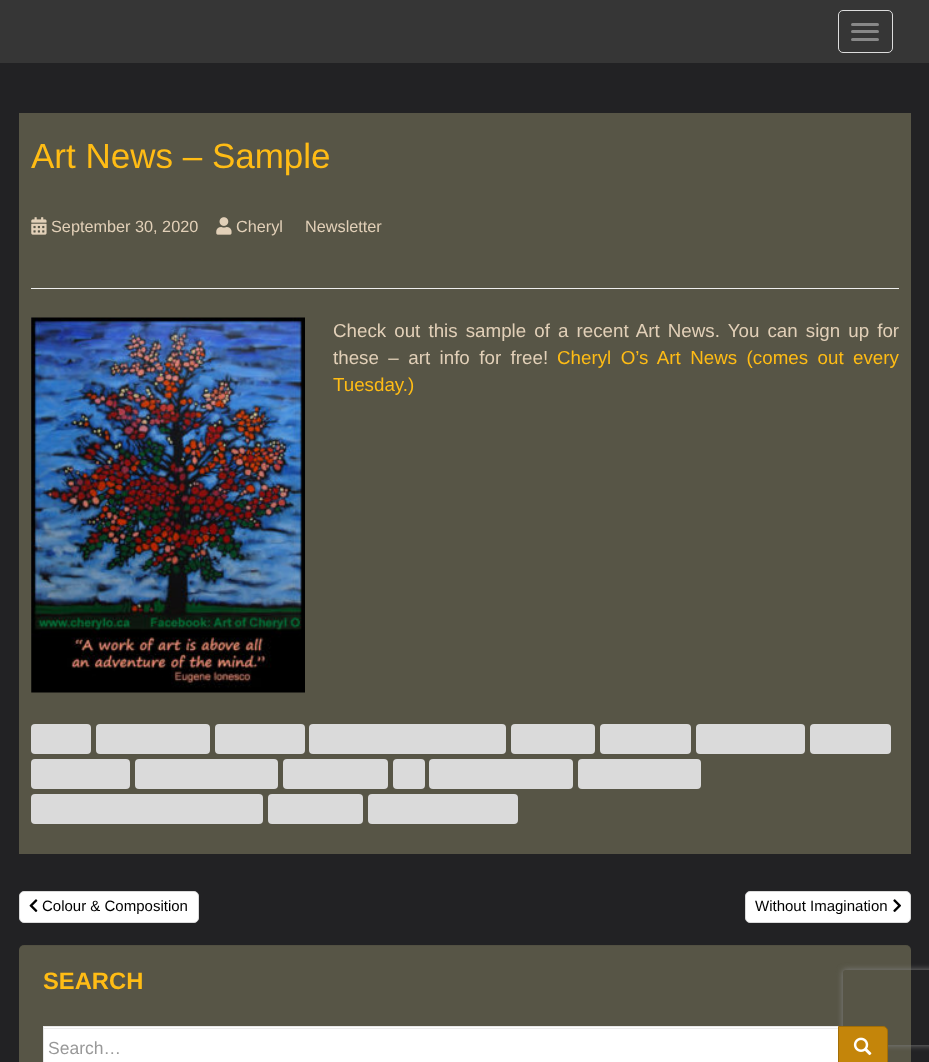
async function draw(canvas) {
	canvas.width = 929;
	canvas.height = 1062;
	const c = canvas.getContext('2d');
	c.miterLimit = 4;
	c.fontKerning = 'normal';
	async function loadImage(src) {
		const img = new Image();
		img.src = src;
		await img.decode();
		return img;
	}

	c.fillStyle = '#222224';
	c.fillRect(0, 0, 929, 1062);
	c.fillStyle = '#363636';
	c.fillRect(0, 0, 929, 63);
	c.beginPath();
	c.roundRect(838.5, 10.5, 54, 42, 4.5);
	c.strokeStyle = '#ddd';
	c.stroke();
	c.fillStyle = '#888';
	c.beginPath();
	c.roundRect(851, 23, 28, 3, 1.5);
	c.fill();
	c.beginPath();
	c.roundRect(851, 30, 28, 3, 1.5);
	c.fill();
	c.beginPath();
	c.roundRect(851, 38, 28, 3, 1.5);
	c.fill();
	c.fillStyle = '#575546';
	c.fillRect(19, 113, 892, 741);
	c.fillStyle = '#eee';
	c.fillRect(31, 288, 868, 1);
	c.font = '35px Liberation Sans';
	c.fillStyle = '#ffbc15';
	c.fillText('Art News – Sample', 31, 168);
	c.drawImage(await loadImage('img1.png'), 31, 217, 16, 18);
	c.font = '16.25px Liberation Sans';
	c.fillStyle = '#e2d0b8';
	c.fillText('September 30, 2020', 51, 232);
	c.drawImage(await loadImage('img2.png'), 216, 217, 16, 18);
	c.fillText('Cheryl', 236, 232);
	c.fillText('Newsletter', 305, 232);
	c.drawImage(await loadImage('img3.png'), 31, 317, 274, 376);
	c.wordSpacing = '2.9px';
	c.font = '18.75px Liberation Sans';
	c.fillText('Check out this sample of a recent Art News. You can sign up for', 333, 337);
	c.wordSpacing = '4.25px';
	c.fillText('these – art info for free!', 333, 364);
	c.fillStyle = '#ffbc15';
	c.fillText('Cheryl O’s Art News (comes out every', 557, 364);
	c.wordSpacing = '0px';
	c.fillText('Tuesday.)', 333, 391);
	c.fillStyle = '#dadada';
	c.beginPath();
	c.roundRect(31, 724, 60, 30, 4);
	c.fill();
	c.beginPath();
	c.roundRect(96, 724, 114, 30, 4);
	c.fill();
	c.beginPath();
	c.roundRect(215, 724, 90, 30, 4);
	c.fill();
	c.beginPath();
	c.roundRect(309, 724, 197, 30, 4);
	c.fill();
	c.beginPath();
	c.roundRect(511, 724, 84, 30, 4);
	c.fill();
	c.beginPath();
	c.roundRect(600, 724, 91, 30, 4);
	c.fill();
	c.beginPath();
	c.roundRect(696, 724, 109, 30, 4);
	c.fill();
	c.beginPath();
	c.roundRect(810, 724, 81, 30, 4);
	c.fill();
	c.beginPath();
	c.roundRect(31, 759, 99, 30, 4);
	c.fill();
	c.beginPath();
	c.roundRect(135, 759, 143, 30, 4);
	c.fill();
	c.beginPath();
	c.roundRect(283, 759, 105, 30, 4);
	c.fill();
	c.beginPath();
	c.roundRect(393, 759, 32, 30, 4);
	c.fill();
	c.beginPath();
	c.roundRect(429, 759, 144, 30, 4);
	c.fill();
	c.beginPath();
	c.roundRect(578, 759, 123, 30, 4);
	c.fill();
	c.beginPath();
	c.roundRect(31, 794, 232, 30, 4);
	c.fill();
	c.beginPath();
	c.roundRect(268, 794, 95, 30, 4);
	c.fill();
	c.beginPath();
	c.roundRect(368, 794, 150, 30, 4);
	c.fill();
	c.fillStyle = '#fff';
	c.beginPath();
	c.roundRect(19.5, 891.5, 179, 31, 4.5);
	c.fill();
	c.strokeStyle = '#dadada';
	c.stroke();
	c.drawImage(await loadImage('img4.png'), 29, 899, 9, 13);
	c.font = '15px Liberation Sans';
	c.fillStyle = '#000';
	c.fillText('Colour & Composition', 42, 911);
	c.fillStyle = '#fff';
	c.beginPath();
	c.roundRect(745.5, 891.5, 165, 31, 4.5);
	c.fill();
	c.stroke();
	c.fillStyle = '#000';
	c.fillText('Without Imagination', 755, 911);
	c.drawImage(await loadImage('img5.png'), 893, 899, 8, 13);
	c.fillStyle = '#575546';
	c.beginPath();
	c.roundRect(19, 945, 892, 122, 5);
	c.fill();
	c.fillStyle = '#0000000d';
	c.beginPath();
	c.moveTo(24, 946);
	c.lineTo(906, 946);
	c.bezierCurveTo(909, 946, 911, 948, 911, 951);
	c.lineTo(911, 950);
	c.bezierCurveTo(911, 947, 909, 945, 906, 945);
	c.lineTo(24, 945);
	c.bezierCurveTo(21, 945, 19, 947, 19, 950);
	c.lineTo(19, 951);
	c.bezierCurveTo(19, 948, 21, 946, 24, 946);
	c.closePath();
	c.fill();
	c.font = 'bold 23.75px Liberation Sans';
	c.fillStyle = '#ffbc15';
	c.fillText('SEARCH', 43, 989);
	c.save();
	c.beginPath();
	c.moveTo(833, 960);
	c.lineTo(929, 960);
	c.lineTo(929, 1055);
	c.lineTo(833, 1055);
	c.closePath();
	c.moveTo(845.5, 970);
	c.lineTo(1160.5, 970);
	c.bezierCurveTo(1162, 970, 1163, 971, 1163, 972.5);
	c.lineTo(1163, 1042.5);
	c.bezierCurveTo(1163, 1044, 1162, 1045, 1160.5, 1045);
	c.lineTo(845.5, 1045);
	c.bezierCurveTo(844, 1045, 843, 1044, 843, 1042.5);
	c.lineTo(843, 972.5);
	c.bezierCurveTo(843, 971, 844, 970, 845.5, 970);
	c.closePath();
	c.clip('evenodd');
	c.fillStyle = '#808080';
	c.filter = 'blur(3px)';
	c.beginPath();
	c.roundRect(843, 970, 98, 75, 2.5);
	c.fill();
	c.filter = 'none';
	c.restore();
	c.fillStyle = '#fff';
	c.fillRect(44, 1027, 794, 35);
	c.fillStyle = '#ececec';
	c.fillRect(44, 1028, 794, 1);
	c.strokeStyle = '#e8e8e8';
	c.strokeRect(43.5, 1026.5, 795, 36);
	c.font = '17.5px Liberation Sans';
	c.fillStyle = '#999';
	c.fillText('Search…', 48, 1054);
	c.fillStyle = '#c4850a';
	c.beginPath();
	c.moveTo(838.5, 1026.5);
	c.lineTo(883, 1026.5);
	c.bezierCurveTo(885.5, 1026.5, 887.5, 1028.5, 887.5, 1031);
	c.lineTo(887.5, 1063);
	c.bezierCurveTo(887.5, 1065.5, 885.5, 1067.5, 883, 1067.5);
	c.lineTo(838.5, 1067.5);
	c.closePath();
	c.fill();
	c.strokeStyle = '#a26e07';
	c.stroke();
	c.drawImage(await loadImage('img6.png'), 853, 1037, 19, 19);
}

draw(document.querySelector('canvas'));
